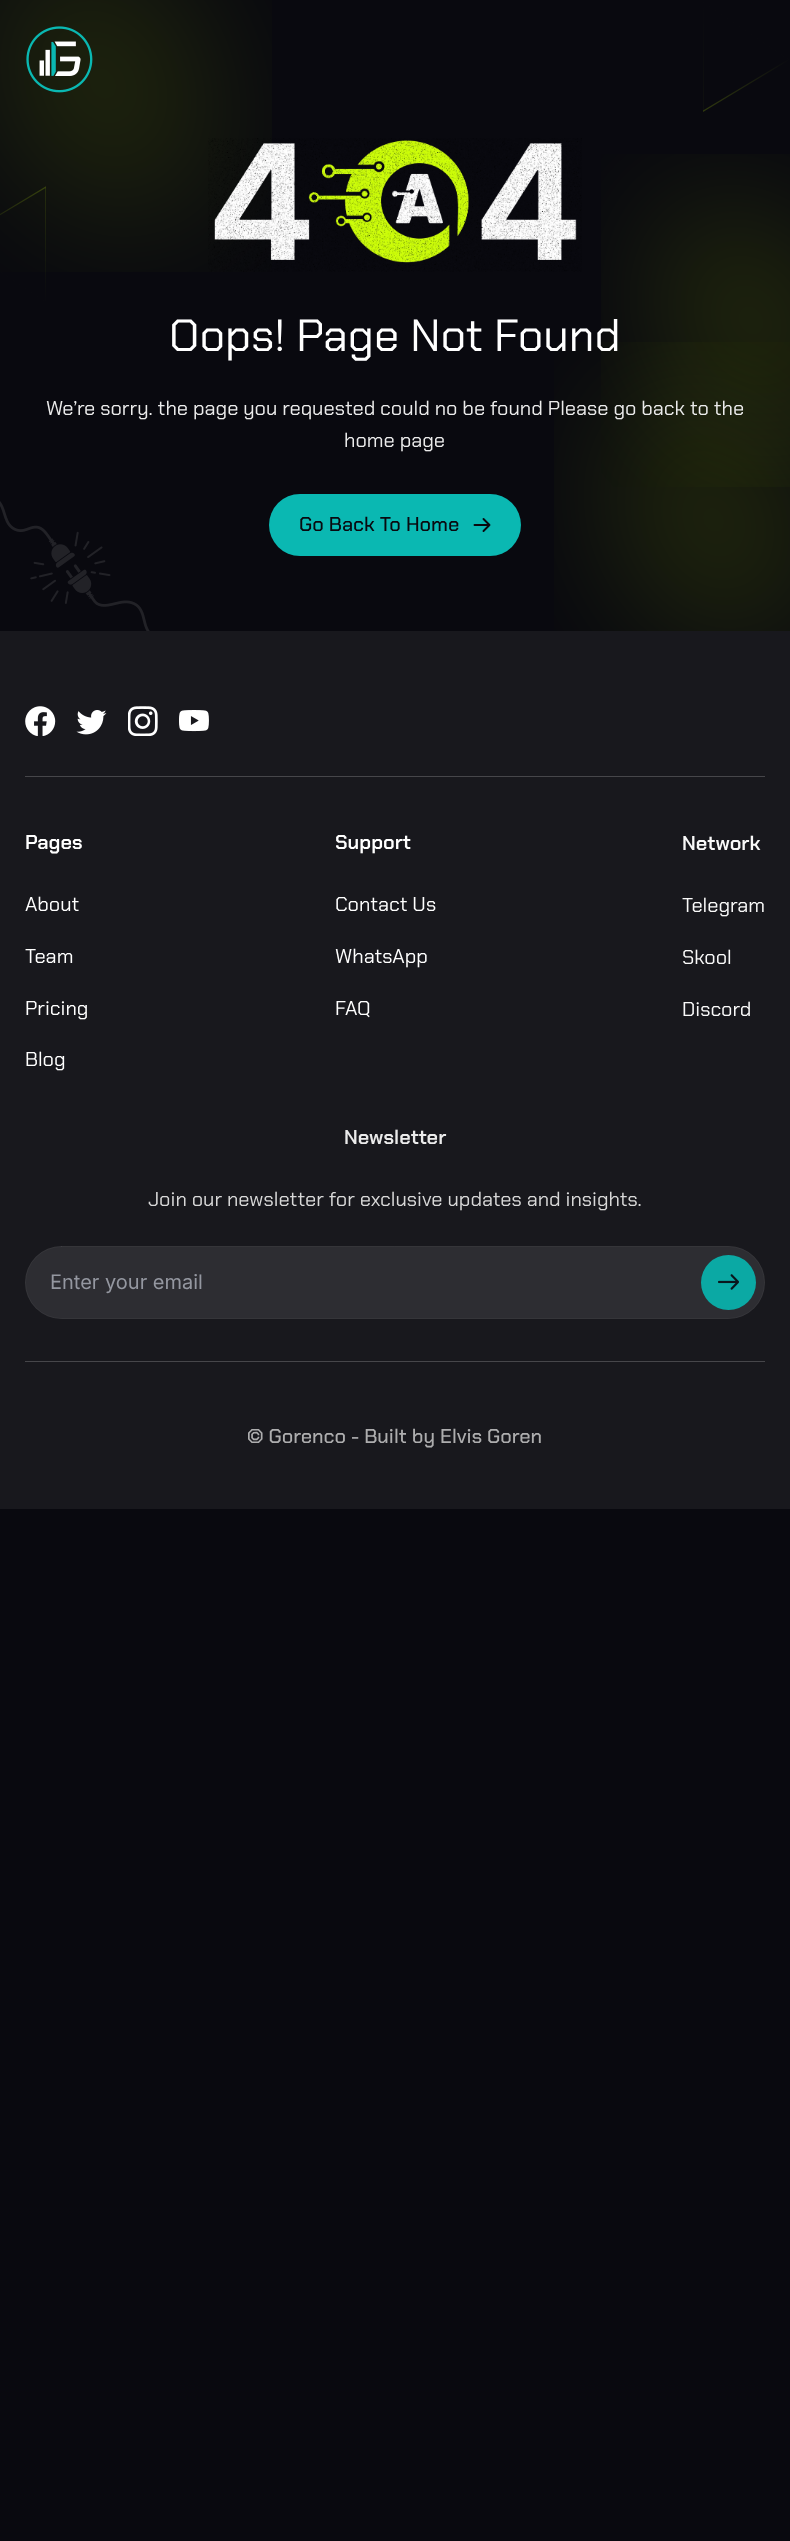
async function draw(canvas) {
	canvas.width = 790;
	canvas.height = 2541;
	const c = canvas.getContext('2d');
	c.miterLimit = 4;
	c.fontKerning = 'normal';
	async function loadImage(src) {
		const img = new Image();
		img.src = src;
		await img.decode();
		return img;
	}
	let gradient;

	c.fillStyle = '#09090f';
	c.fillRect(0, 0, 790, 2541);
	c.save();
	c.beginPath();
	c.rect(0, 186, 46, 119);
	c.clip();
	c.beginPath();
	c.moveTo(-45, 241.5);
	c.lineTo(46, 187);
	c.lineTo(46, 302.5);
	c.closePath();
	gradient = c.createLinearGradient(54, 191, 0.3, 273);
	gradient.addColorStop(0, '#303a0e');
	gradient.addColorStop(1, '#09090f');
	c.strokeStyle = gradient;
	c.lineWidth = 1.1;
	c.stroke();
	c.restore();
	c.drawImage(await loadImage('img2.png'), 0, 0, 272, 272);
	c.drawImage(await loadImage('img1.png'), 26, 26, 67, 67);
	c.save();
	c.beginPath();
	c.rect(703, 0, 87, 113);
	c.clip();
	c.beginPath();
	c.moveTo(789, 59.5);
	c.lineTo(702.5, 111.5);
	c.lineTo(702.5, 1.5);
	c.closePath();
	gradient = c.createLinearGradient(694, 108, 746, 30);
	gradient.addColorStop(0, '#303a0e');
	gradient.addColorStop(1, '#09090f');
	c.strokeStyle = gradient;
	c.lineWidth = 1.3;
	c.stroke();
	c.restore();
	c.drawImage(await loadImage('img6.png'), 554, 342, 236, 289);
	c.drawImage(await loadImage('img3.png'), 601, 154, 189, 333);
	c.drawImage(await loadImage('img4.png'), 208, 138, 374, 134);
	c.font = '45px Chakra Petch';
	c.fillStyle = '#fff';
	c.fillText('Oops! Page Not Found', 169, 351);
	c.font = '20px Chakra Petch';
	c.fillStyle = '#ebebeb';
	c.fillText('We’re sorry. the page you requested could no be found Please go back to the', 46, 415);
	c.fillText('home page', 344, 447);
	c.fillStyle = '#0ab8b2';
	c.beginPath();
	c.roundRect(269, 494, 252, 62, 31);
	c.fill();
	c.font = '500 20px Chakra Petch';
	c.fillStyle = '#09090f';
	c.fillText('Go Back To Home', 299, 531);
	c.beginPath();
	c.moveTo(483.5, 519);
	c.lineTo(489.5, 525);
	c.moveTo(489.5, 525);
	c.lineTo(483.5, 531);
	c.moveTo(489.5, 525);
	c.lineTo(474.5, 525);
	c.strokeStyle = '#09090f';
	c.lineWidth = 1.9;
	c.lineCap = 'round';
	c.lineJoin = 'round';
	c.stroke();
	c.drawImage(await loadImage('img5.png'), 0, 501, 150, 130);
	c.fillStyle = '#18181d';
	c.fillRect(0, 631, 790, 878);
	c.drawImage(await loadImage('img7.png'), 25, 706, 31, 30);
	c.drawImage(await loadImage('img8.png'), 76, 710, 31, 25);
	c.drawImage(await loadImage('img9.png'), 128, 706, 30, 30);
	c.drawImage(await loadImage('img10.png'), 179, 710, 30, 22);
	c.fillStyle = '#46464a';
	c.fillRect(25, 776, 740, 1);
	c.fillRect(25, 1361, 740, 1);
	c.font = '600 20px Chakra Petch';
	c.fillStyle = '#fff';
	c.fillText('Pages', 25, 849);
	c.font = '20px Chakra Petch';
	for (const [text, x, y] of [
		['About', 25, 911],
		['Team', 25, 963],
		['Pricing', 25, 1015],
		['Blog', 25, 1066],
	]) {
		c.fillText(text, x, y);
	}
	c.font = '600 20px Chakra Petch';
	c.fillText('Support', 335, 849);
	c.font = '20px Chakra Petch';
	for (const [text, x, y] of [
		['Contact Us', 335, 911],
		['WhatsApp', 335, 963],
		['FAQ', 335, 1015],
	]) {
		c.fillText(text, x, y);
	}
	c.font = '600 20px Chakra Petch';
	c.fillStyle = '#f9f9f9';
	c.fillText('Network', 682, 850);
	c.font = '20px Chakra Petch';
	for (const [text, x, y] of [
		['Telegram', 682, 912],
		['Skool', 682, 964],
		['Discord', 682, 1016],
	]) {
		c.fillText(text, x, y);
	}
	c.font = '600 20px Chakra Petch';
	c.fillStyle = '#ebebeb';
	c.fillText('Newsletter', 344, 1144);
	c.font = '20px Chakra Petch';
	c.fillStyle = '#d8d8d8';
	c.fillText('Join our newsletter for exclusive updates and insights.', 148, 1206);
	c.fillStyle = '#2d2d32';
	c.beginPath();
	c.roundRect(25, 1246, 740, 73, 36.5);
	c.fill();
	c.beginPath();
	c.roundRect(25.5, 1246.5, 739, 72, 36);
	c.strokeStyle = '#7e7e7e1a';
	c.lineWidth = 1;
	c.lineJoin = 'miter';
	c.stroke();
	c.font = '20px Inter';
	c.fillStyle = '#9497a0';
	c.fillText('Enter your email', 50, 1289);
	c.fillStyle = '#0ba9a4';
	c.beginPath();
	c.arc(728.5, 1282.5, 27.5, 0, 2 * Math.PI);
	c.fill();
	c.drawImage(await loadImage('img11.png'), 718, 1274, 21, 16);
	c.font = '500 20px Chakra Petch';
	c.fillStyle = '#adadae';
	c.fillText('© Gorenco - Built by Elvis Goren', 247, 1443);
}

draw(document.querySelector('canvas'));
